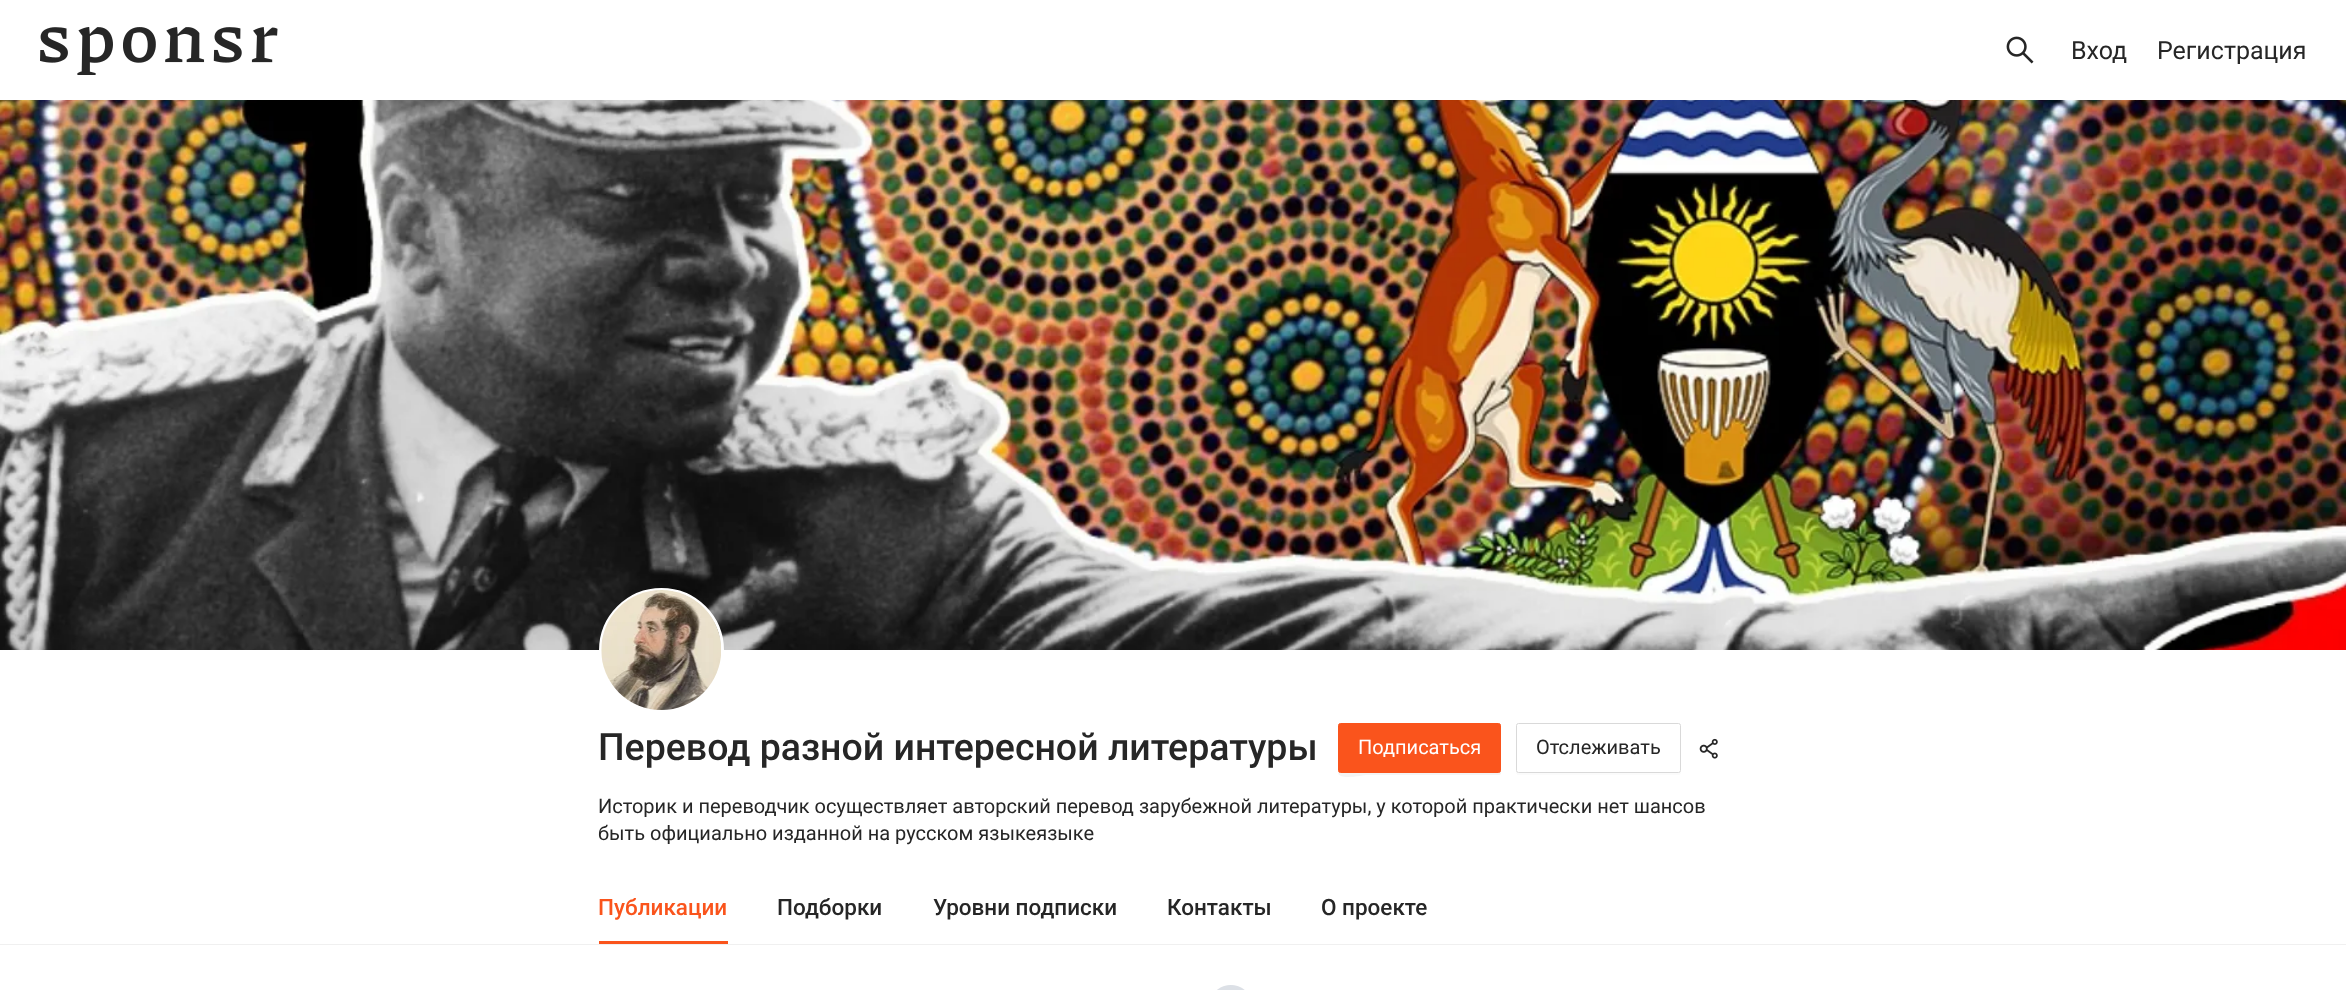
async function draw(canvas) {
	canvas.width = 2346;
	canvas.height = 990;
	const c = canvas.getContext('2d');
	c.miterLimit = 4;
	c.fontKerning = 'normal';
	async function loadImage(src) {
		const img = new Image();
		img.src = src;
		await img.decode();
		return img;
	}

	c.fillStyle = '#fff';
	c.fillRect(0, 0, 2346, 990);
	c.drawImage(await loadImage('img1.png'), 40, 27, 238, 48);
	c.drawImage(await loadImage('img2.png'), 2006, 36, 28, 28);
	c.font = '25px Roboto';
	c.fillStyle = '#262626';
	c.fillText('Вход', 2071, 59);
	c.fillText('Регистрация', 2157, 59);
	c.drawImage(await loadImage('img3.png'), 0, 100, 2346, 550);
	c.beginPath();
	c.arc(661.5, 650.5, 61, 0, 2 * Math.PI);
	c.strokeStyle = '#fff';
	c.lineWidth = 3;
	c.stroke();
	c.drawImage(await loadImage('img4.png'), 601, 590, 120, 120);
	c.font = '500 37.5px Roboto';
	c.fillText('Перевод разной интересной литературы', 598, 760);
	c.fillStyle = '#f4f4f4';
	c.beginPath();
	c.moveTo(1338, 772);
	c.bezierCurveTo(1338, 781, 1363, 775, 1367, 775);
	c.lineTo(1499, 775);
	c.bezierCurveTo(1501, 775, 1501, 773, 1501, 771);
	c.bezierCurveTo(1501, 772, 1500, 772, 1499, 772);
	c.lineTo(1339, 772);
	c.closePath();
	c.fill();
	c.fillStyle = '#fa541c';
	c.beginPath();
	c.roundRect(1338.5, 723.5, 162, 49, 2);
	c.fill();
	c.strokeStyle = '#fa541c';
	c.lineWidth = 1;
	c.stroke();
	c.font = '20px Roboto';
	c.fillStyle = '#fff';
	c.fillText('Подписаться', 1358, 754);
	c.fillStyle = '#fbfbfb';
	c.beginPath();
	c.moveTo(1516, 726);
	c.lineTo(1516, 772);
	c.bezierCurveTo(1516, 774, 1517, 775, 1518, 775);
	c.lineTo(1678, 775);
	c.bezierCurveTo(1680, 775, 1681, 774, 1681, 772);
	c.lineTo(1681, 771);
	c.bezierCurveTo(1681, 772, 1680, 772, 1679, 772);
	c.lineTo(1519, 772);
	c.bezierCurveTo(1517, 772, 1516, 771, 1516, 770);
	c.closePath();
	c.fill();
	c.fillStyle = '#fff';
	c.beginPath();
	c.roundRect(1516.5, 723.5, 164, 49, 2);
	c.fill();
	c.strokeStyle = '#d9d9d9';
	c.stroke();
	c.fillStyle = '#262626';
	c.fillText('Отслеживать', 1536, 754);
	c.drawImage(await loadImage('img5.png'), 1699, 738, 19, 21);
	c.fillText('Историк и переводчик осуществляет авторский перевод зарубежной литературы, у которой практически нет шансов', 598, 813);
	c.fillText('быть официально изданной на русском языкеязыке', 598, 840);
	c.font = '500 22.5px Roboto';
	c.fillStyle = '#fa541c';
	c.fillText('Публикации', 598, 915);
	c.fillStyle = '#262626';
	for (const [text, x, y] of [
		['Подборки', 777, 915],
		['Уровни подписки', 933, 915],
		['Контакты', 1167, 915],
		['О проекте', 1321, 915],
	]) {
		c.fillText(text, x, y);
	}
	c.fillStyle = '#fa541c';
	c.fillRect(599, 941, 129, 3);
	c.fillStyle = '#f0f0f0';
	c.fillRect(0, 944, 2346, 1);
	c.drawImage(await loadImage('img6.png'), 1217, 985, 28, 5);
}

draw(document.querySelector('canvas'));
